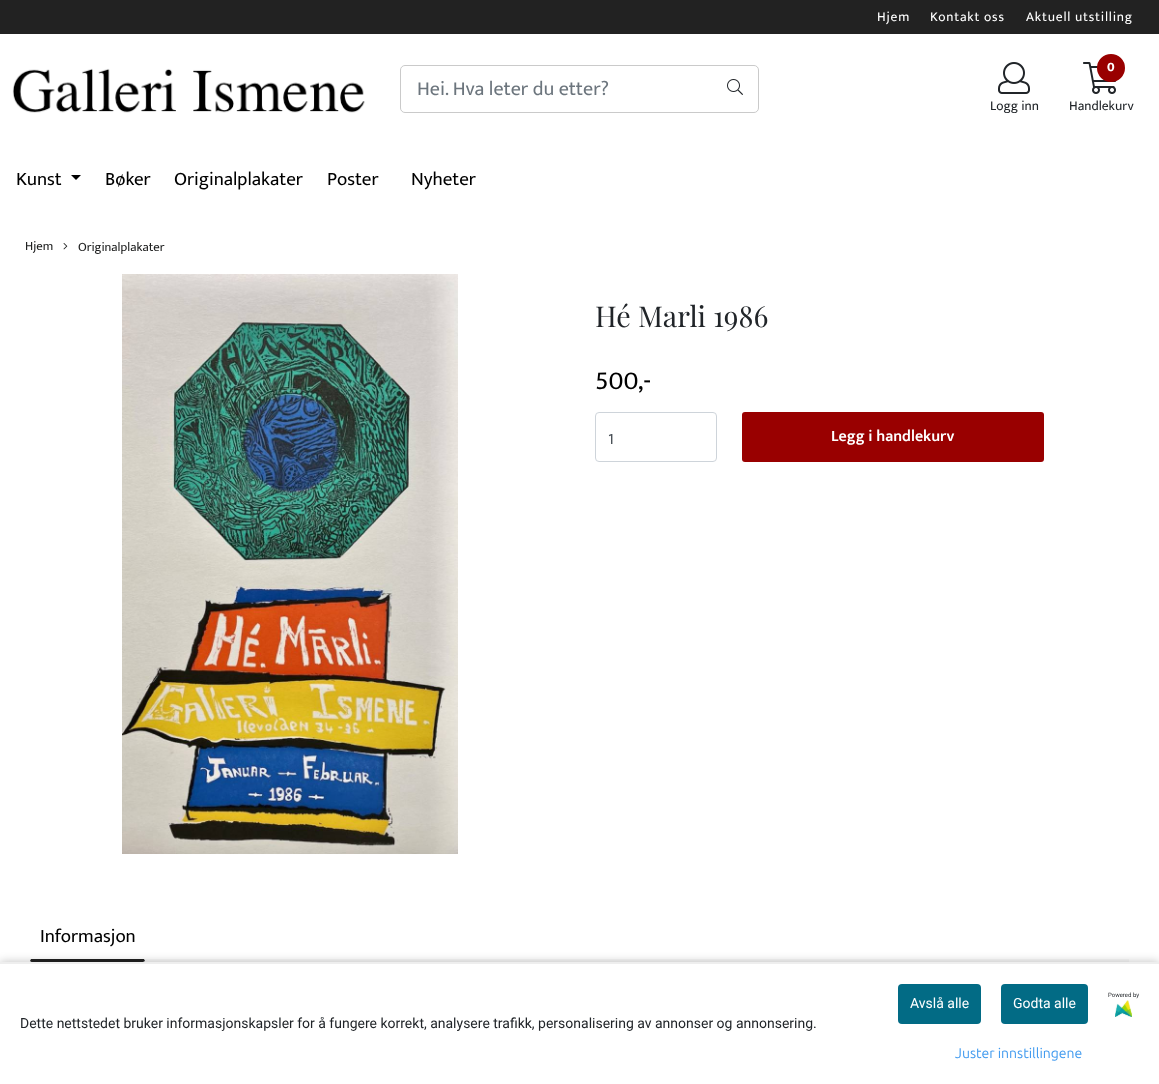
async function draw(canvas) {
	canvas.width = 1159;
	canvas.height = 1084;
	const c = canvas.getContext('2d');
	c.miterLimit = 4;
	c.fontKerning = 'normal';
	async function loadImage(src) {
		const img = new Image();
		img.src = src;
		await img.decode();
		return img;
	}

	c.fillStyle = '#fff';
	c.fillRect(0, 0, 1159, 1084);
	c.fillStyle = '#222';
	c.fillRect(0, 0, 1159, 34);
	c.letterSpacing = '0.8px';
	c.font = '13.5px Mukta';
	c.fillStyle = '#fff';
	for (const [text, x, y] of [
		['Hjem', 877, 21],
		['Kontakt oss', 930, 21],
		['Aktuell utstilling', 1026, 21],
	]) {
		c.fillText(text, x, y);
	}
	c.drawImage(await loadImage('img1.png'), 12, 68, 353, 45);
	c.beginPath();
	c.roundRect(400.5, 65.5, 358, 47, 4.5);
	c.strokeStyle = '#cacaca';
	c.stroke();
	c.letterSpacing = '0px';
	c.font = '20px Mukta';
	c.fillStyle = '#6c757d';
	c.fillText('Hei. Hva leter du etter?', 417, 95);
	c.drawImage(await loadImage('img2.png'), 727, 79, 16, 16);
	c.drawImage(await loadImage('img3.png'), 998, 62, 32, 32);
	c.font = '13.5px Mukta';
	c.fillStyle = '#212529';
	c.fillText('Logg inn', 990, 110);
	c.drawImage(await loadImage('img4.png'), 1083, 62, 34, 32);
	c.fillStyle = '#900';
	c.beginPath();
	c.arc(1111, 68, 13, 0, 2 * Math.PI);
	c.fill();
	c.strokeStyle = '#900';
	c.lineWidth = 2;
	c.stroke();
	c.font = '800 12.75px Mukta';
	c.fillStyle = '#fff';
	c.fillText('0', 1107, 71);
	c.font = '13.5px Mukta';
	c.fillStyle = '#212529';
	c.fillText('Handlekurv', 1069, 110);
	c.font = '19px Mukta';
	c.fillStyle = '#000';
	c.fillText('Kunst', 16, 185);
	c.beginPath();
	c.moveTo(71, 175);
	c.lineTo(81, 175);
	c.lineTo(76, 180);
	c.closePath();
	c.fill();
	for (const [text, x, y] of [
		['Bøker', 105, 185],
		['Originalplakater', 174, 185],
		['Poster', 327, 185],
		['Nyheter', 411, 185],
	]) {
		c.fillText(text, x, y);
	}
	c.font = '12.75px Mukta';
	c.fillStyle = '#202121';
	c.fillText('Hjem', 25, 250);
	c.drawImage(await loadImage('img5.png'), 63, 243, 5, 7);
	c.fillText('Originalplakater', 78, 251);
	c.drawImage(await loadImage('img6.png'), 122, 274, 336, 580);
	c.font = '28.75px Playfair Display';
	c.fillStyle = '#212529';
	c.fillText('Hé Marli 1986', 595, 327);
	c.font = '26px Mukta';
	c.fillStyle = '#000';
	c.fillText('500,-', 595, 389);
	c.beginPath();
	c.roundRect(595.5, 412.5, 121, 49, 3.5);
	c.strokeStyle = '#ced4da';
	c.lineWidth = 1;
	c.stroke();
	c.font = '16px Mukta';
	c.fillStyle = '#495057';
	c.fillText('1', 608, 444);
	c.fillStyle = '#900';
	c.beginPath();
	c.roundRect(742, 412, 302, 50, 3);
	c.fill();
	c.font = '600 16px Mukta';
	c.fillStyle = '#fff';
	c.fillText('Legg i handlekurv', 831, 441);
	c.fillStyle = '#f8f8f8';
	c.fillRect(30, 959, 1099, 3);
	c.fillStyle = '#fff';
	c.beginPath();
	c.roundRect(30, 914, 115, 48, 3);
	c.fill();
	c.fillStyle = '#222';
	c.beginPath();
	c.moveTo(33, 962);
	c.lineTo(143, 962);
	c.lineTo(145, 961);
	c.lineTo(144, 959);
	c.lineTo(31, 959);
	c.lineTo(30, 961);
	c.bezierCurveTo(31, 962, 32, 962, 33, 962);
	c.closePath();
	c.fill();
	c.font = '19px Mukta';
	c.fillStyle = '#000';
	c.fillText('Informasjon', 40, 942);
	c.fillStyle = '#00000040';
	c.filter = 'blur(5px)';
	c.beginPath();
	c.rect(0, 962, 1159, 122);
	c.fill();
	c.filter = 'none';
	c.fillStyle = '#fff';
	c.fillRect(0, 964, 1159, 120);
	c.fillStyle = '#eee';
	c.fillRect(0, 962, 1159, 2);
	c.font = '14px Roboto';
	c.fillStyle = '#212529';
	c.fillText('Dette nettstedet bruker informasjonskapsler for å fungere korrekt, analysere trafikk, personalisering av annonser og annonsering.', 20, 1028);
	c.fillStyle = '#026b85';
	c.beginPath();
	c.roundRect(898, 984, 83, 40, 4);
	c.fill();
	c.fillStyle = '#fff';
	c.fillText('Avslå alle', 910, 1008);
	c.fillStyle = '#026b85';
	c.beginPath();
	c.roundRect(1001, 984, 87, 40, 4);
	c.fill();
	c.fillStyle = '#fff';
	c.fillText('Godta alle', 1013, 1008);
	c.font = '6px Roboto';
	c.fillStyle = '#212529';
	c.fillText('Powered by', 1108, 997);
	c.drawImage(await loadImage('img7.png'), 1115, 1000, 17, 17);
	c.font = '14px Ubuntu';
	c.fillStyle = '#409aef';
	c.fillText('Juster innstillingene', 955, 1058);
}

draw(document.querySelector('canvas'));
